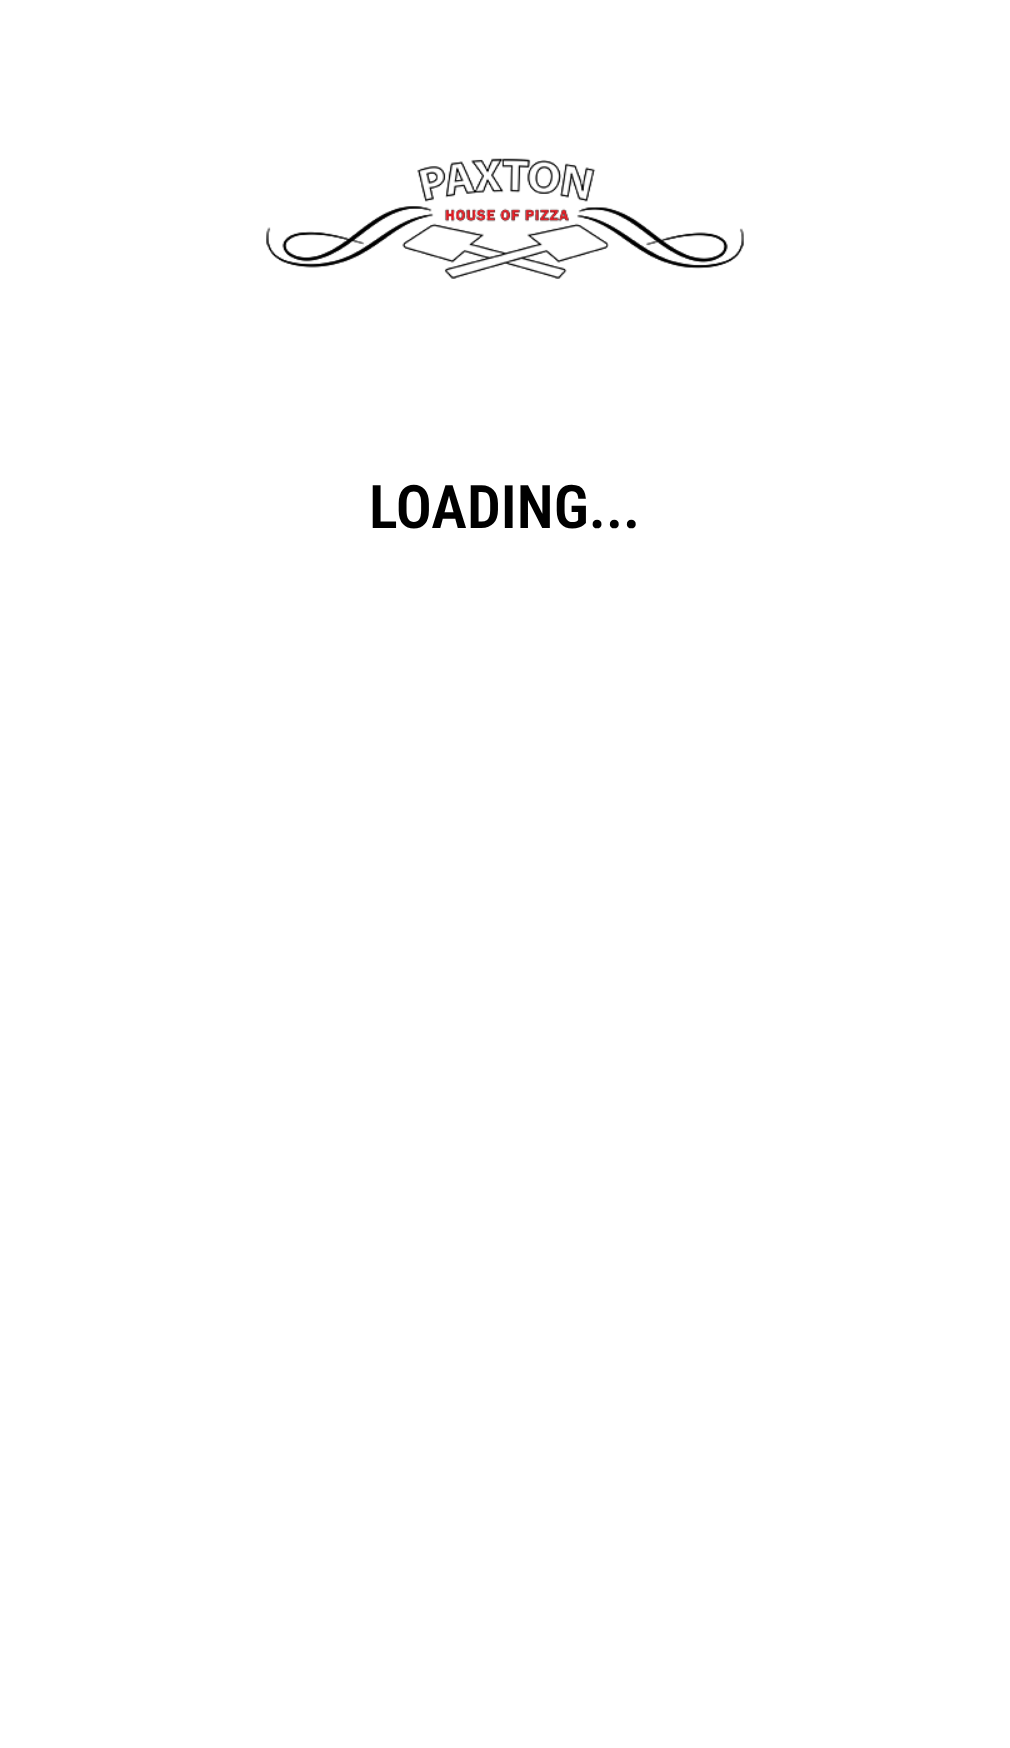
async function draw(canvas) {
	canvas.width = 1010;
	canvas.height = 1748;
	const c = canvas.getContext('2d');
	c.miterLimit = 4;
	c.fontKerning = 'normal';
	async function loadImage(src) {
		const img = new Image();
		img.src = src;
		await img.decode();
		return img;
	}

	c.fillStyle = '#fff';
	c.fillRect(0, 0, 1010, 1748);
	c.drawImage(await loadImage('img1.png'), 266, 158, 478, 121);
	c.font = '600 60px Roboto Condensed';
	c.fillStyle = '#000';
	c.fillText('LOADING...', 369, 528);
}

draw(document.querySelector('canvas'));
